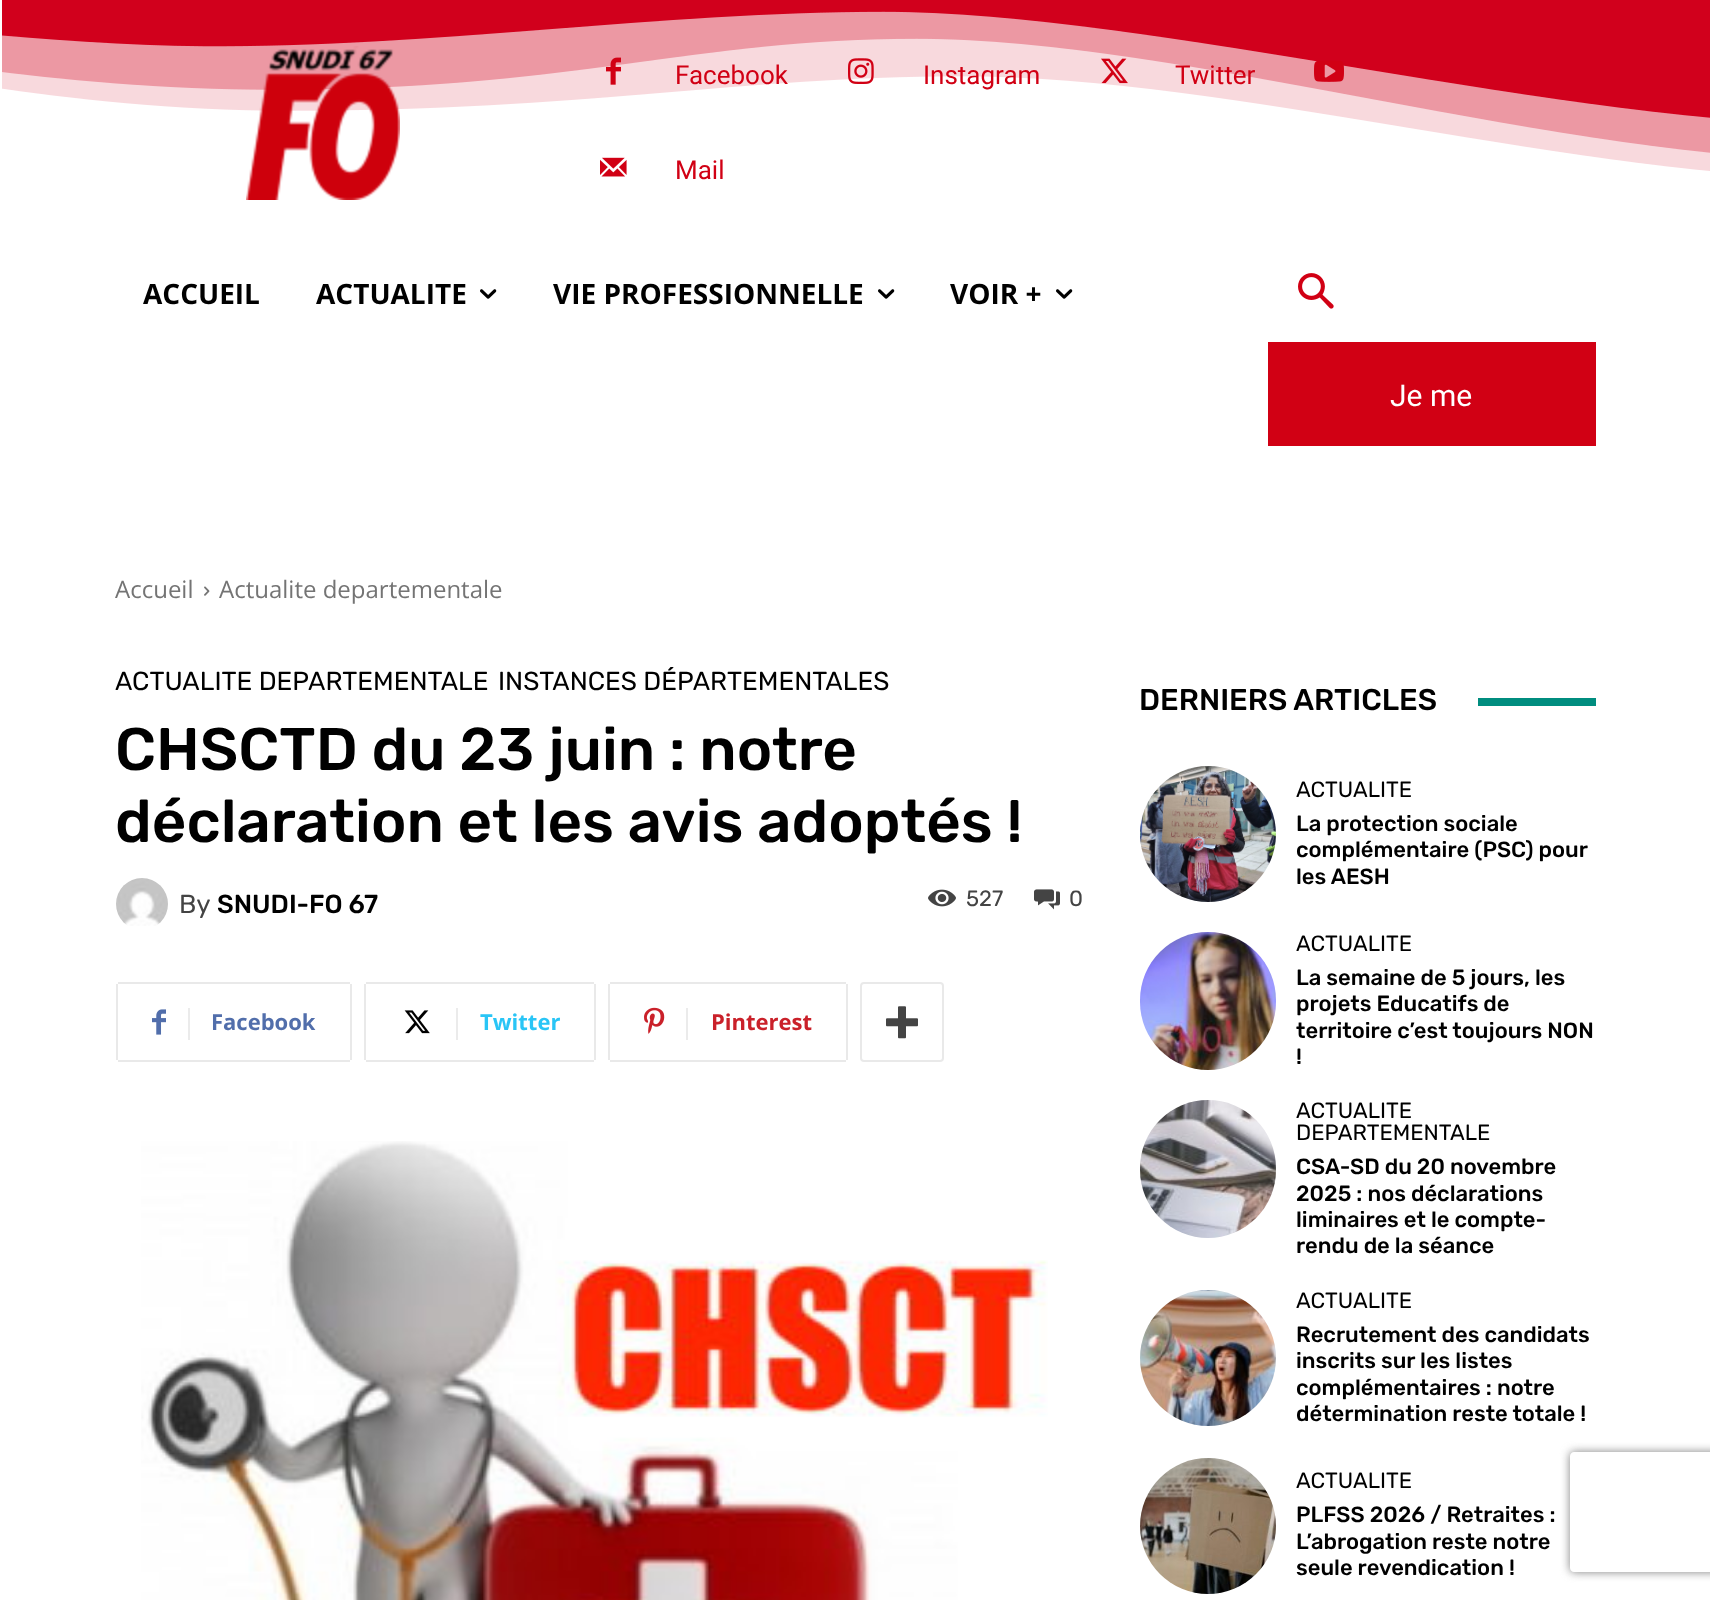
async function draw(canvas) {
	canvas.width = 1710;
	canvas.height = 1600;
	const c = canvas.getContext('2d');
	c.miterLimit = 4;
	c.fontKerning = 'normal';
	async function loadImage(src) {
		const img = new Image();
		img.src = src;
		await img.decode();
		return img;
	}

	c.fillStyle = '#fff';
	c.fillRect(0, 0, 1710, 1600);
	c.drawImage(await loadImage('img1.png'), 2, 0, 1708, 171);
	c.drawImage(await loadImage('img2.png'), 246, 46, 154, 154);
	c.drawImage(await loadImage('img3.png'), 606, 57, 15, 28);
	c.font = '26px Roboto';
	c.fillStyle = '#d10014';
	c.fillText('Facebook', 675, 84);
	c.drawImage(await loadImage('img4.png'), 848, 58, 26, 26);
	c.fillText('Instagram', 923, 84);
	c.drawImage(await loadImage('img5.png'), 1101, 58, 27, 26);
	c.fillText('Twitter', 1175, 84);
	c.drawImage(await loadImage('img6.png'), 1314, 60, 30, 22);
	c.drawImage(await loadImage('img7.png'), 600, 157, 27, 20);
	c.fillText('Mail', 675, 179);
	c.font = 'bold 28px Open Sans';
	c.fillStyle = '#000';
	c.fillText('ACCUEIL', 143, 304);
	c.fillText('ACTUALITE', 316, 304);
	c.drawImage(await loadImage('img8.png'), 480, 289, 17, 10);
	c.fillText('VIE PROFESSIONNELLE', 553, 304);
	c.drawImage(await loadImage('img8.png'), 878, 289, 17, 10);
	c.fillText('VOIR +', 950, 304);
	c.drawImage(await loadImage('img8.png'), 1056, 289, 17, 10);
	c.drawImage(await loadImage('img9.png'), 1298, 273, 36, 36);
	c.fillStyle = '#d10014';
	c.fillRect(1268, 342, 328, 104);
	c.font = '30px Roboto';
	c.fillStyle = '#fff';
	c.fillText('Je me', 1390, 406);
	c.font = '24px Open Sans';
	c.fillStyle = '#747474';
	c.fillText('Accueil', 115, 598);
	c.drawImage(await loadImage('img10.png'), 204, 586, 6, 10);
	c.fillText('Actualite departementale', 219, 598);
	c.font = '26px Rubik';
	c.fillStyle = '#000';
	c.fillText('ACTUALITE DEPARTEMENTALE', 115, 690);
	c.fillText('INSTANCES DÉPARTEMENTALES', 498, 690);
	c.font = '500 60px Rubik';
	c.fillText('CHSCTD du 23 juin : notre', 115, 770);
	c.fillText('déclaration et les avis adoptés !', 115, 842);
	c.drawImage(await loadImage('img11.png'), 116, 878, 52, 48);
	c.font = '26px Rubik';
	c.fillStyle = '#444';
	c.fillText('By', 179, 913);
	c.font = '500 26px Rubik';
	c.fillStyle = '#000';
	c.fillText('SNUDI-FO 67', 217, 913);
	c.drawImage(await loadImage('img12.png'), 928, 889, 28, 18);
	c.font = '22px Rubik';
	c.fillStyle = '#444';
	c.fillText('527', 966, 906);
	c.drawImage(await loadImage('img13.png'), 1034, 889, 26, 21);
	c.fillText('0', 1069, 906);
	c.fillStyle = '#e9e9e9';
	c.fillRect(116, 984, 2, 76);
	c.drawImage(await loadImage('img14.png'), 152, 1009, 14, 26);
	for (const [x, y, w, h, color] of [
		[118, 982, 232, 2, '#e9e9e9'],
		[350, 984, 2, 76, '#e9e9e9'],
		[118, 1060, 232, 2, '#e9e9e9'],
		[188, 1008, 2, 32, '#ebebeb'],
	]) {
		c.fillStyle = color;
		c.fillRect(x, y, w, h);
	}
	c.font = 'bold 22px Open Sans';
	c.fillStyle = '#516eab';
	c.fillText('Facebook', 211, 1030);
	c.fillStyle = '#e9e9e9';
	c.fillRect(364, 984, 2, 76);
	c.drawImage(await loadImage('img15.png'), 404, 1010, 26, 24);
	for (const [x, y, w, h, color] of [
		[366, 982, 228, 2, '#e9e9e9'],
		[594, 984, 2, 76, '#e9e9e9'],
		[366, 1060, 228, 2, '#e9e9e9'],
		[456, 1008, 2, 32, '#ebebeb'],
	]) {
		c.fillStyle = color;
		c.fillRect(x, y, w, h);
	}
	c.fillStyle = '#29c5f6';
	c.fillText('Twitter', 480, 1030);
	c.fillStyle = '#e9e9e9';
	c.fillRect(608, 984, 2, 76);
	c.drawImage(await loadImage('img16.png'), 644, 1007, 21, 27);
	for (const [x, y, w, h, color] of [
		[610, 982, 236, 2, '#e9e9e9'],
		[846, 984, 2, 76, '#e9e9e9'],
		[610, 1060, 236, 2, '#e9e9e9'],
		[686, 1008, 2, 32, '#ebebeb'],
	]) {
		c.fillStyle = color;
		c.fillRect(x, y, w, h);
	}
	c.fillStyle = '#ca212a';
	c.fillText('Pinterest', 711, 1030);
	c.beginPath();
	c.roundRect(861, 983, 82, 78, 3);
	c.strokeStyle = '#e9e9e9';
	c.lineWidth = 2;
	c.stroke();
	c.drawImage(await loadImage('img17.png'), 886, 1006, 32, 33);
	c.drawImage(await loadImage('img18.png'), 141, 1141, 907, 459);
	c.font = '500 30px Rubik';
	c.fillStyle = '#000';
	c.fillText('DERNIERS ARTICLES', 1139, 710);
	c.fillStyle = '#008d7f';
	c.fillRect(1478, 698, 118, 8);
	c.drawImage(await loadImage('img19.png'), 1140, 766, 136, 136);
	c.font = '22px Rubik';
	c.fillStyle = '#000';
	c.fillText('ACTUALITE', 1296, 797);
	c.font = '500 22px Rubik';
	for (const [text, x, y] of [
		['La protection sociale', 1296, 831],
		['complémentaire (PSC) pour', 1296, 857],
		['les AESH', 1296, 884],
	]) {
		c.fillText(text, x, y);
	}
	c.drawImage(await loadImage('img20.png'), 1140, 932, 136, 138);
	c.font = '22px Rubik';
	c.fillText('ACTUALITE', 1296, 951);
	c.font = '500 22px Rubik';
	for (const [text, x, y] of [
		['La semaine de 5 jours, les', 1296, 985],
		['projets Educatifs de', 1296, 1011],
		['territoire c’est toujours NON', 1296, 1038],
		['!', 1296, 1064],
	]) {
		c.fillText(text, x, y);
	}
	c.drawImage(await loadImage('img21.png'), 1140, 1100, 136, 138);
	c.font = '22px Rubik';
	c.fillText('ACTUALITE', 1296, 1118);
	c.fillText('DEPARTEMENTALE', 1296, 1140);
	c.font = '500 22px Rubik';
	for (const [text, x, y] of [
		['CSA-SD du 20 novembre', 1296, 1174],
		['2025 : nos déclarations', 1296, 1201],
		['liminaires et le compte-', 1296, 1227],
		['rendu de la séance', 1296, 1253],
	]) {
		c.fillText(text, x, y);
	}
	c.drawImage(await loadImage('img22.png'), 1140, 1290, 136, 136);
	c.font = '22px Rubik';
	c.fillText('ACTUALITE', 1296, 1308);
	c.font = '500 22px Rubik';
	for (const [text, x, y] of [
		['Recrutement des candidats', 1296, 1342],
		['inscrits sur les listes', 1296, 1368],
		['complémentaires : notre', 1296, 1395],
		['détermination reste totale !', 1296, 1421],
	]) {
		c.fillText(text, x, y);
	}
	c.drawImage(await loadImage('img23.png'), 1140, 1458, 136, 136);
	c.font = '22px Rubik';
	c.fillText('ACTUALITE', 1296, 1488);
	c.font = '500 22px Rubik';
	for (const [text, x, y] of [
		['PLFSS 2026 / Retraites :', 1296, 1522],
		['L’abrogation reste notre', 1296, 1549],
		['seule revendication !', 1296, 1575],
	]) {
		c.fillText(text, x, y);
	}
	c.save();
	c.beginPath();
	c.moveTo(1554, 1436);
	c.lineTo(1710, 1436);
	c.lineTo(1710, 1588);
	c.lineTo(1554, 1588);
	c.closePath();
	c.moveTo(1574, 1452);
	c.lineTo(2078, 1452);
	c.bezierCurveTo(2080, 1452, 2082, 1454, 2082, 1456);
	c.lineTo(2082, 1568);
	c.bezierCurveTo(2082, 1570, 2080, 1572, 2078, 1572);
	c.lineTo(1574, 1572);
	c.bezierCurveTo(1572, 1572, 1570, 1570, 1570, 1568);
	c.lineTo(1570, 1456);
	c.bezierCurveTo(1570, 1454, 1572, 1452, 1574, 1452);
	c.closePath();
	c.clip('evenodd');
	c.fillStyle = '#808080';
	c.filter = 'blur(5px)';
	c.beginPath();
	c.roundRect(1570, 1452, 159, 120, 4);
	c.fill();
	c.filter = 'none';
	c.restore();
}

draw(document.querySelector('canvas'));
